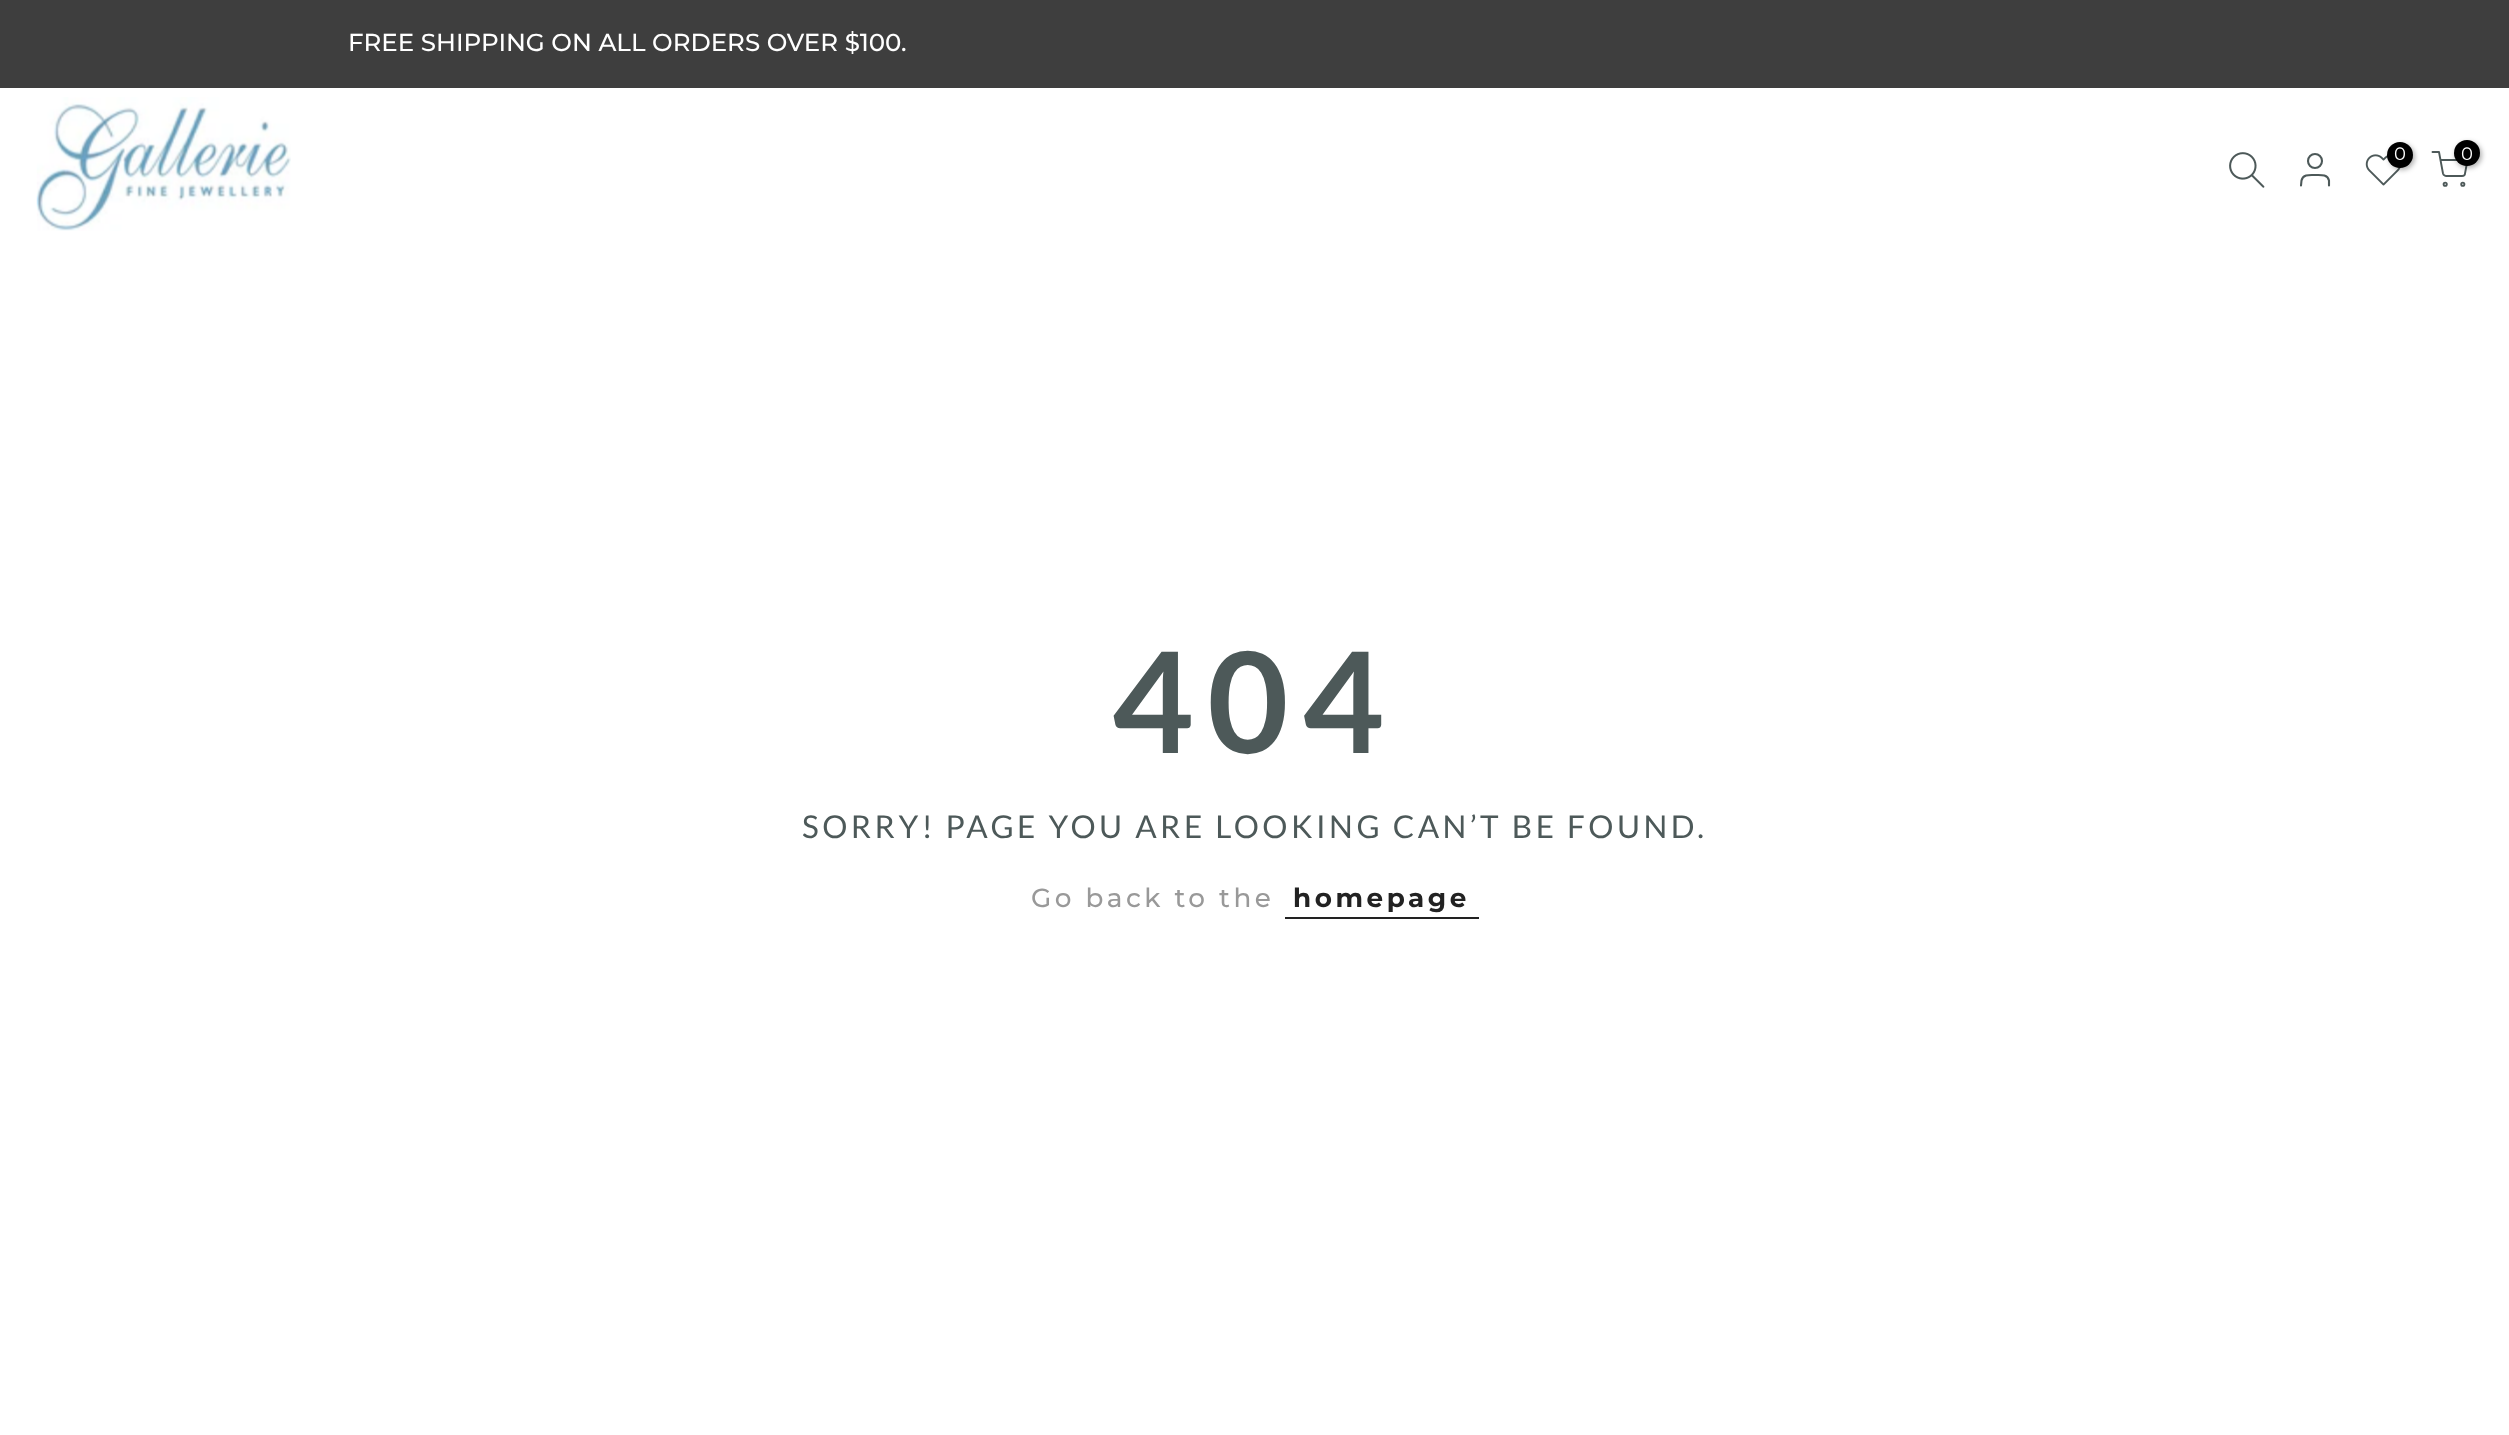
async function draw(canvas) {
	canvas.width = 2509;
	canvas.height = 1435;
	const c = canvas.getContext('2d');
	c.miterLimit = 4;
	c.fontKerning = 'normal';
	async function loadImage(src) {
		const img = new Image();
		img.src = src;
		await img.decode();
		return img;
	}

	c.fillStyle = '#fff';
	c.fillRect(0, 0, 2509, 1435);
	c.fillStyle = '#3e3e3e';
	c.fillRect(0, 0, 2509, 88);
	c.font = '500 24.5px Montserrat';
	c.fillStyle = '#fff';
	c.fillText('FREE SHIPPING ON ALL ORDERS OVER $100.', 348, 51);
	c.drawImage(await loadImage('img1.png'), 36, 97, 255, 134);
	c.drawImage(await loadImage('img2.png'), 2229, 152, 36, 36);
	c.beginPath();
	c.arc(2315, 161, 7, 0, 2 * Math.PI);
	c.strokeStyle = '#4d5959';
	c.lineWidth = 2.1;
	c.stroke();
	c.beginPath();
	c.moveTo(2329, 185.5);
	c.lineTo(2329, 180.5);
	c.bezierCurveTo(2327.5, 174, 2320.5, 175, 2315, 175);
	c.bezierCurveTo(2310, 175, 2303, 174, 2301.5, 180.5);
	c.lineTo(2301, 185.5);
	c.lineCap = 'round';
	c.lineJoin = 'round';
	c.stroke();
	c.drawImage(await loadImage('img3.png'), 2365, 154, 36, 32);
	c.fillStyle = '#0000004d';
	c.filter = 'blur(2.5px)';
	c.beginPath();
	c.roundRect(2389, 144, 26, 26, 13);
	c.fill();
	c.filter = 'none';
	c.fillStyle = '#000';
	c.beginPath();
	c.arc(2400, 155, 13, 0, 2 * Math.PI);
	c.fill();
	c.font = '18px Montserrat';
	c.fillStyle = '#fff';
	c.fillText('0', 2394, 160);
	c.beginPath();
	c.moveTo(2432.5, 152);
	c.lineTo(2439, 152);
	c.lineTo(2443, 173.5);
	c.bezierCurveTo(2443.5, 175, 2444.5, 176, 2446.5, 176);
	c.lineTo(2462, 176);
	c.bezierCurveTo(2463.5, 176, 2465, 175, 2465, 173.5);
	c.lineTo(2467.5, 160);
	c.lineTo(2440.5, 160);
	c.lineWidth = 1.9;
	c.stroke();
	c.fillStyle = '#0000004d';
	c.filter = 'blur(2.5px)';
	c.beginPath();
	c.roundRect(2455, 142, 27, 26, 13);
	c.fill();
	c.filter = 'none';
	c.fillStyle = '#000';
	c.beginPath();
	c.arc(2467, 153, 13, 0, 2 * Math.PI);
	c.fill();
	c.fillStyle = '#fff';
	c.fillText('0', 2461, 160);
	c.beginPath();
	c.arc(2445.2, 184.2, 1.6, 0, 2 * Math.PI);
	c.stroke();
	c.beginPath();
	c.arc(2462.8, 184.2, 1.6, 0, 2 * Math.PI);
	c.stroke();
	c.letterSpacing = '14px';
	c.font = 'bold 140px Lato';
	c.fillStyle = '#4d5959';
	c.fillText('404', 1112, 753);
	c.letterSpacing = '3.5px';
	c.font = '31.5px Lato';
	c.fillText('SORRY! PAGE YOU ARE LOOKING CAN’T BE FOUND.', 802, 838);
	c.font = '500 26.25px Montserrat';
	c.fillStyle = '#999';
	c.fillText('Go back to the', 1031, 907);
	c.font = 'bold 26.25px Montserrat';
	c.fillStyle = '#222';
	c.fillText('homepage', 1293, 907);
	c.fillRect(1285, 917, 194, 2);
}

draw(document.querySelector('canvas'));
